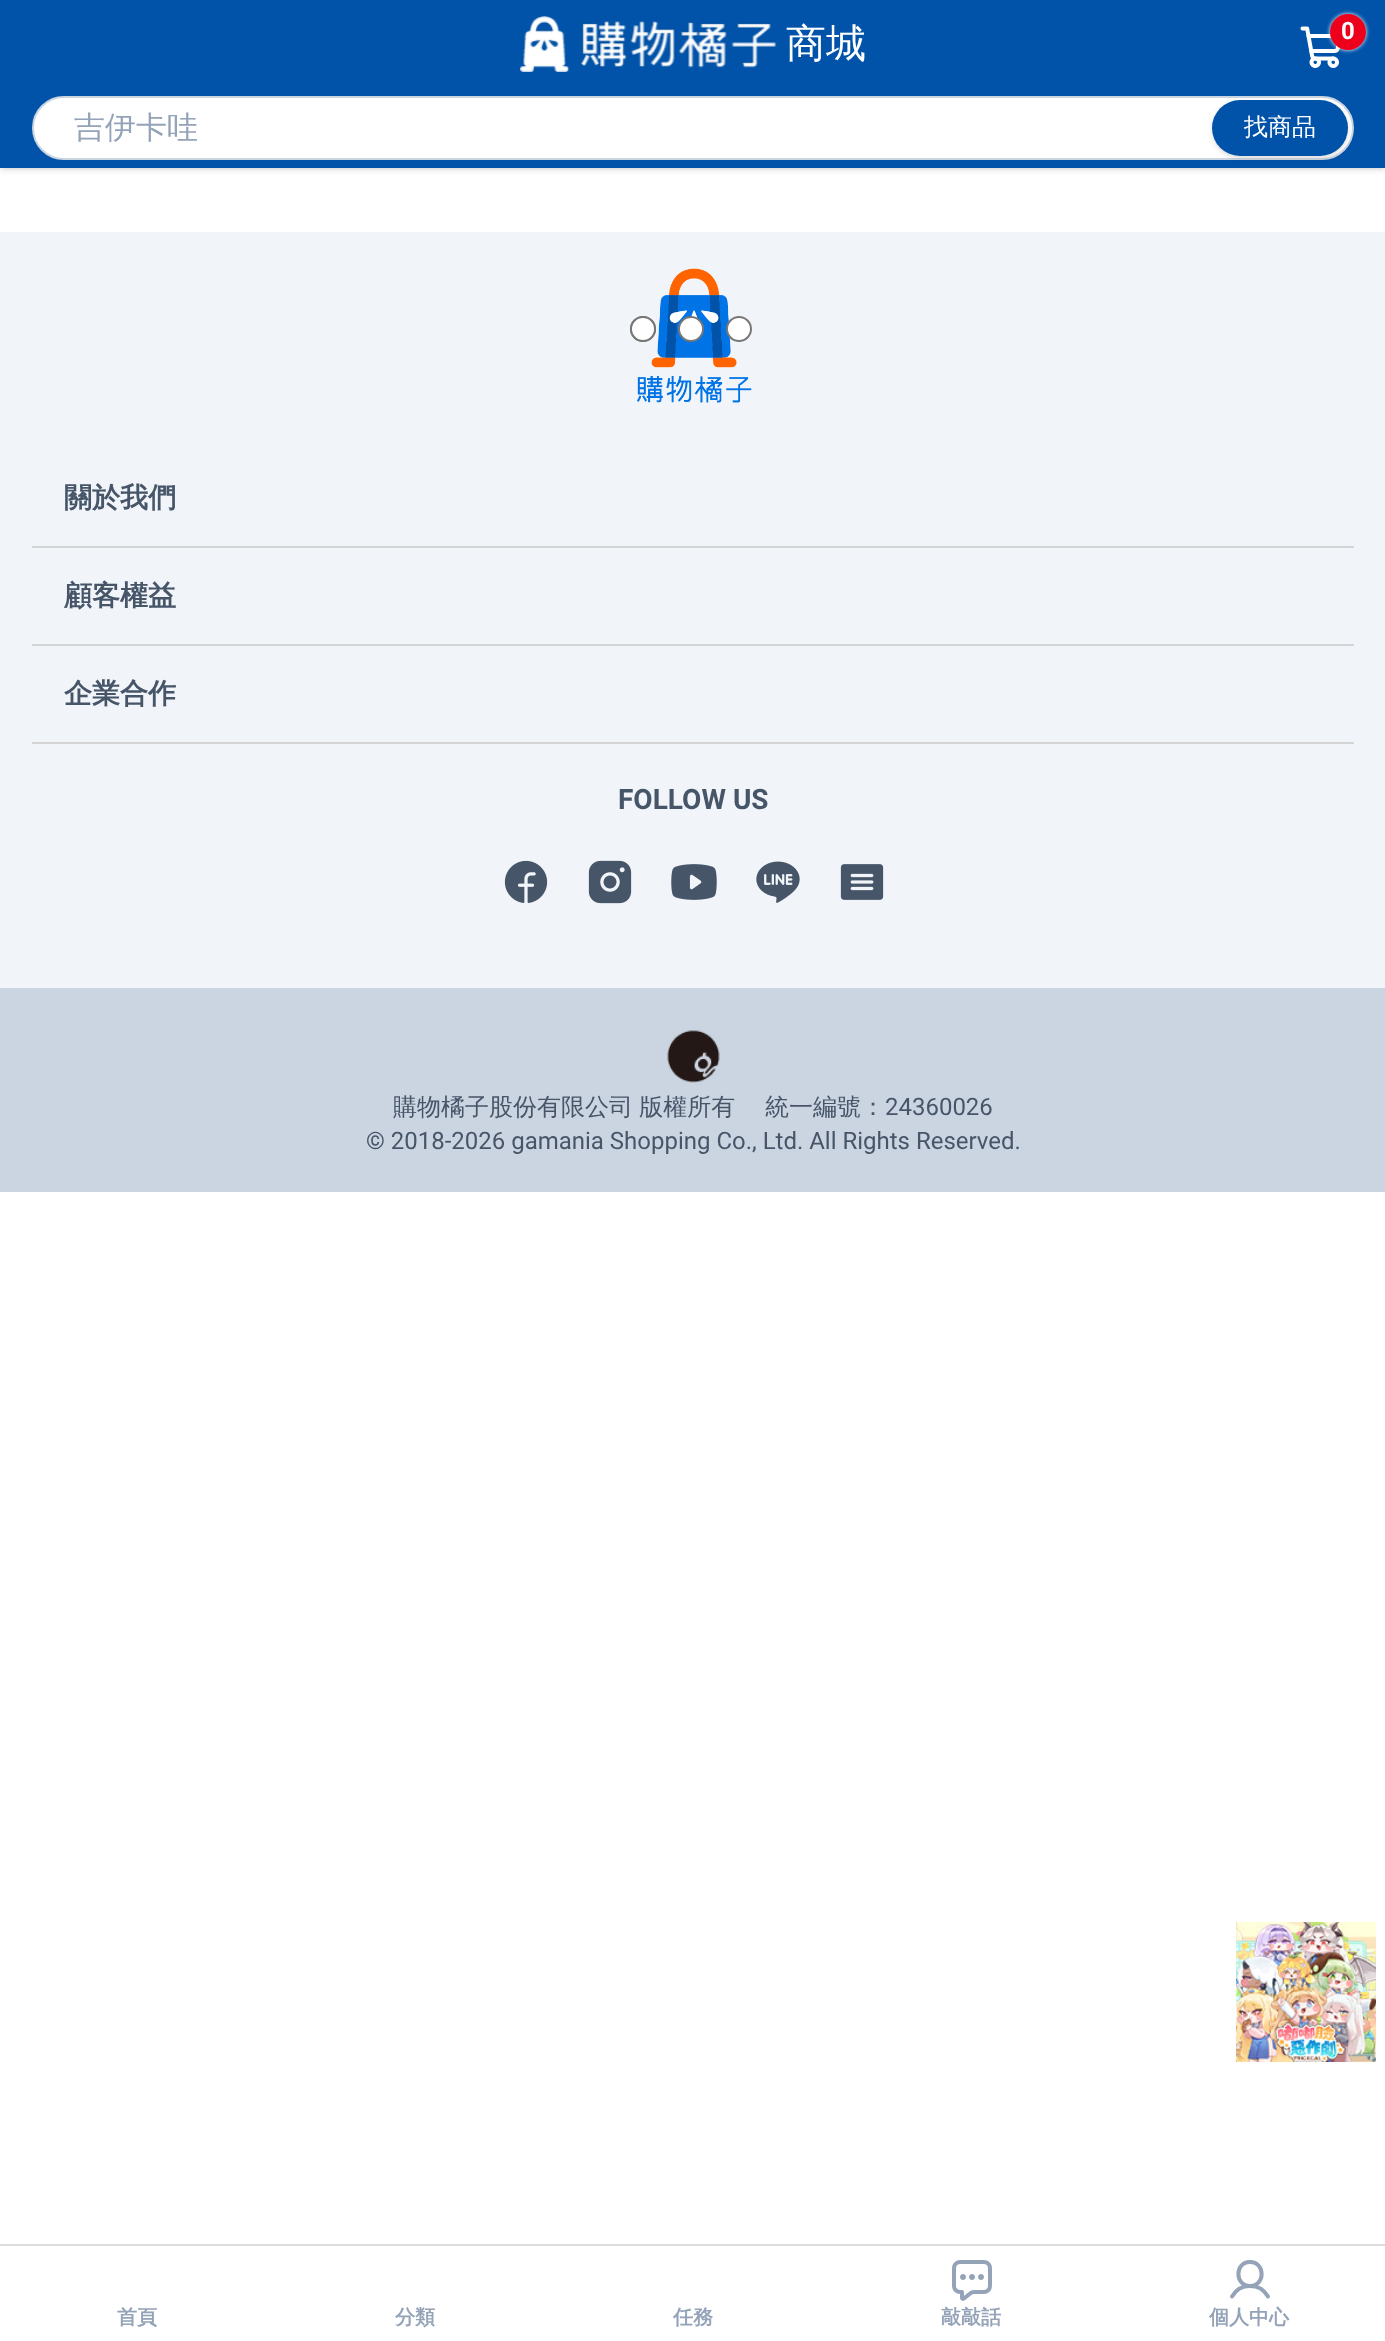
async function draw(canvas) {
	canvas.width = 1385;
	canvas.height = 2341;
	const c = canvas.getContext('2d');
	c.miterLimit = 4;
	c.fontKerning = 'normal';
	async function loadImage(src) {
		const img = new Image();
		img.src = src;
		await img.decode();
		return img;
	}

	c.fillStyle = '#fff';
	c.fillRect(0, 0, 1385, 2341);
	c.fillStyle = '#0000001a';
	c.filter = 'blur(3px)';
	c.beginPath();
	c.rect(0, 2, 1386, 168);
	c.fill();
	c.filter = 'none';
	c.filter = 'blur(2px)';
	c.beginPath();
	c.rect(2, 4, 1382, 164);
	c.fill();
	c.filter = 'none';
	c.fillStyle = '#0053a9';
	c.fillRect(0, 0, 1385, 168);
	c.drawImage(await loadImage('img1.png'), 520, 16, 257, 56);
	c.font = '500 40px WenQuanYi Zen Hei';
	c.fillStyle = '#fff';
	c.fillText('商城', 786, 57);
	c.drawImage(await loadImage('img2.png'), 1300, 26, 40, 42);
	c.filter = 'blur(2px)';
	c.beginPath();
	c.roundRect(1330, 14, 36, 36, 18);
	c.fill();
	c.filter = 'none';
	c.fillStyle = '#ed001b';
	c.beginPath();
	c.arc(1348, 32, 18, 0, 2 * Math.PI);
	c.fill();
	c.font = 'bold 24px Roboto';
	c.fillStyle = '#fff';
	c.fillText('0', 1341, 39);
	c.beginPath();
	c.roundRect(33, 97, 1320, 62, 31);
	c.fill();
	c.strokeStyle = '#cbd5e1';
	c.lineWidth = 2;
	c.stroke();
	c.font = '500 31px WenQuanYi Zen Hei';
	c.fillStyle = '#94a3b8';
	c.fillText('吉伊卡哇', 74, 138);
	c.fillStyle = '#0000001a';
	c.filter = 'blur(3px)';
	c.beginPath();
	c.roundRect(1212, 102, 136, 56, 28);
	c.fill();
	c.filter = 'none';
	c.filter = 'blur(2px)';
	c.beginPath();
	c.roundRect(1214, 104, 132, 52, 26);
	c.fill();
	c.filter = 'none';
	c.fillStyle = '#0053a9';
	c.beginPath();
	c.roundRect(1212, 100, 136, 56, 28);
	c.fill();
	c.font = '500 24px WenQuanYi Zen Hei';
	c.fillStyle = '#fff';
	c.fillText('找商品', 1244, 135);
	c.drawImage(await loadImage('img3.png'), 1236, 1922, 140, 140);
	c.fillStyle = '#f1f5f9';
	c.fillRect(0, 232, 1385, 756);
	c.drawImage(await loadImage('img4.png'), 637, 268, 115, 135);
	c.beginPath();
	c.arc(643, 329, 12, 0, 2 * Math.PI);
	c.strokeStyle = '#777';
	c.stroke();
	c.fillStyle = '#fff';
	c.beginPath();
	c.arc(643, 329, 12, 0, 2 * Math.PI);
	c.fill();
	c.stroke();
	c.beginPath();
	c.arc(691, 329, 12, 0, 2 * Math.PI);
	c.fill();
	c.stroke();
	c.beginPath();
	c.arc(739, 329, 12, 0, 2 * Math.PI);
	c.fill();
	c.stroke();
	c.fillStyle = '#d4d4d4';
	c.fillRect(32, 546, 1322, 2);
	c.font = 'bold 28px WenQuanYi Zen Hei';
	c.fillStyle = '#475569';
	c.fillText('關於我們', 64, 507);
	c.fillStyle = '#d4d4d4';
	c.fillRect(32, 644, 1322, 2);
	c.fillStyle = '#475569';
	c.fillText('顧客權益', 64, 605);
	c.fillStyle = '#d4d4d4';
	c.fillRect(32, 742, 1322, 2);
	c.fillStyle = '#475569';
	c.fillText('企業合作', 64, 703);
	c.font = 'bold 28px Roboto';
	c.fillText('FOLLOW US', 618, 809);
	c.drawImage(await loadImage('img5.png'), 504, 860, 44, 43);
	c.drawImage(await loadImage('img6.png'), 588, 860, 44, 44);
	c.drawImage(await loadImage('img7.png'), 671, 864, 46, 36);
	c.drawImage(await loadImage('img8.png'), 756, 861, 44, 42);
	c.drawImage(await loadImage('img9.png'), 840, 864, 44, 36);
	c.fillStyle = '#cbd5e1';
	c.fillRect(0, 988, 1385, 204);
	c.drawImage(await loadImage('img10.png'), 667, 1030, 53, 53);
	c.wordSpacing = '-1px';
	c.font = '500 24px WenQuanYi Zen Hei';
	c.fillStyle = '#475569';
	c.fillText('購物橘子股份有限公司 版權所有', 393, 1115);
	c.wordSpacing = '0px';
	c.fillText('統一編號：', 765, 1115);
	c.font = '24px Roboto';
	c.fillText('24360026', 885, 1115);
	c.fillText('© 2018-2026 gamania Shopping Co., Ltd. All Rights Reserved.', 366, 1149);
	c.fillStyle = '#ddd';
	c.fillRect(0, 2244, 1385, 2);
	c.font = 'bold 20px WenQuanYi Zen Hei';
	c.fillStyle = '#94a3b8';
	for (const [text, x, y] of [
		['首頁', 117, 2324],
		['分類', 395, 2324],
		['任務', 673, 2324],
	]) {
		c.fillText(text, x, y);
	}
	c.drawImage(await loadImage('img11.png'), 952, 2260, 40, 41);
	c.fillText('敲敲話', 941, 2324);
	c.beginPath();
	c.moveTo(1250, 2286);
	c.bezierCurveTo(1265.5, 2286, 1265.5, 2262, 1250, 2262);
	c.bezierCurveTo(1234.5, 2262, 1234.5, 2286, 1250, 2286);
	c.closePath();
	c.moveTo(1232, 2296.5);
	c.bezierCurveTo(1240, 2282.5, 1260, 2282.5, 1268, 2296.5);
	c.strokeStyle = '#94a3b8';
	c.lineWidth = 4;
	c.lineCap = 'round';
	c.lineJoin = 'round';
	c.stroke();
	c.fillText('個人中心', 1209, 2324);
}

draw(document.querySelector('canvas'));
